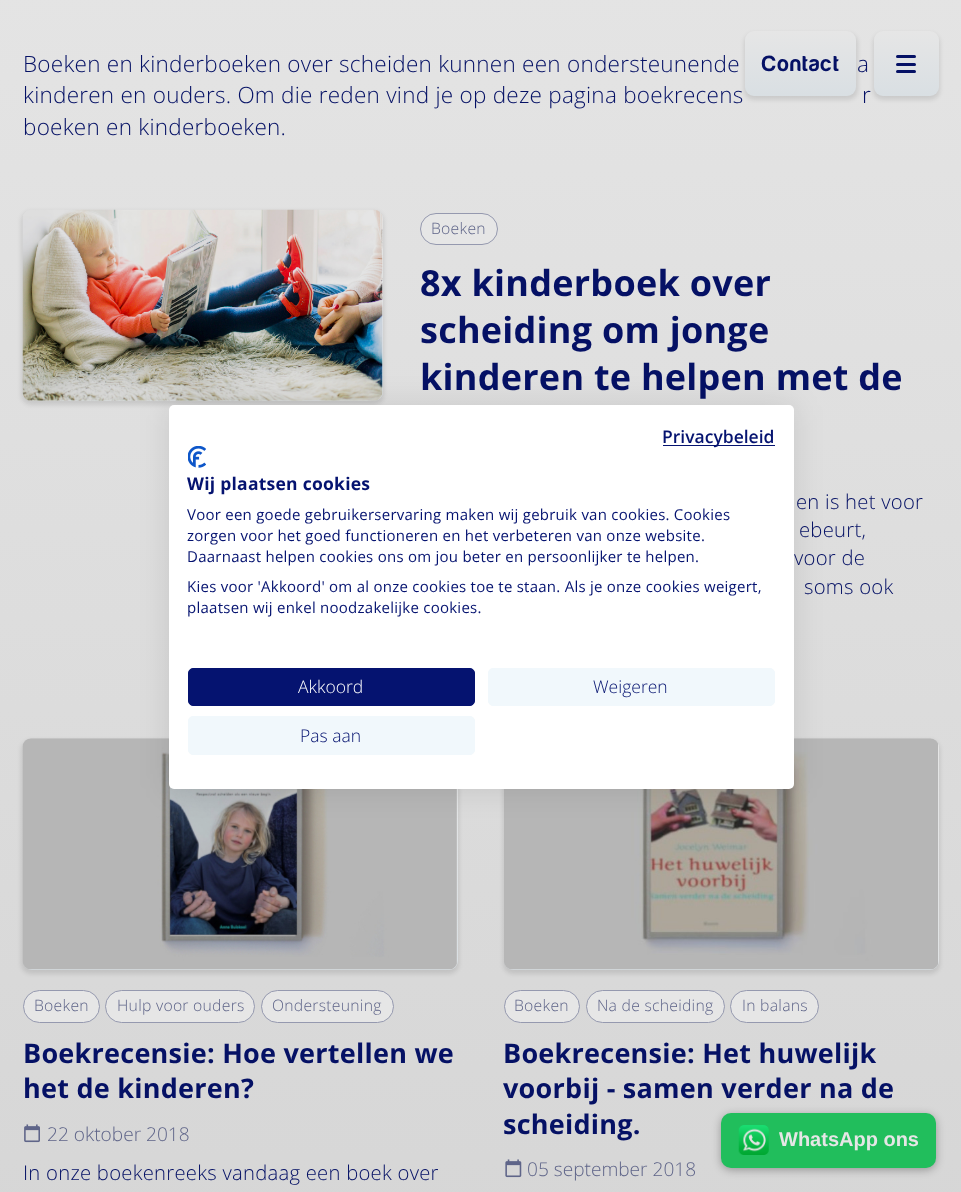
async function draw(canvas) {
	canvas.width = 961;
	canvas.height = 1192;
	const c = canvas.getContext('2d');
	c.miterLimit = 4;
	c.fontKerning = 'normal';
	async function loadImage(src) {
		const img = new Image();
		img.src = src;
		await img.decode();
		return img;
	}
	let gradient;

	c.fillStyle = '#fff';
	c.fillRect(0, 0, 961, 1192);
	gradient = c.createLinearGradient(481, -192, 481, 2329);
	gradient.addColorStop(0, '#e6e6e6');
	gradient.addColorStop(1, '#cacaca');
	c.fillStyle = gradient;
	c.fillRect(0, 0, 961, 1192);
	c.letterSpacing = '0.25px';
	c.font = '300 22.5px Open Sans';
	c.fillStyle = '#051165';
	for (const [text, x, y] of [
		['Boeken en kinderboeken over scheiden kunnen een ondersteunende', 23, 72],
		['a', 857, 72],
		['kinderen en ouders. Om die reden vind je op deze pagina boekrecens', 23, 103],
		['r', 862, 103],
		['boeken en kinderboeken.', 23, 135],
	]) {
		c.fillText(text, x, y);
	}
	c.fillStyle = '#0000001a';
	c.filter = 'blur(2px)';
	c.beginPath();
	c.roundRect(21, 211, 363, 194, 10);
	c.fill();
	c.filter = 'none';
	gradient = c.createLinearGradient(203, 210, 203, 401);
	gradient.addColorStop(0, '#e6e6e6');
	gradient.addColorStop(1, '#d9dfe3');
	c.fillStyle = gradient;
	c.beginPath();
	c.roundRect(23, 210, 360, 191, 9);
	c.fill();
	c.drawImage(await loadImage('img1.png'), 22, 209, 361, 192);
	c.fillStyle = '#e6e6e6';
	c.beginPath();
	c.roundRect(420.5, 213.5, 77, 31, 15.5);
	c.fill();
	c.strokeStyle = '#9599af';
	c.stroke();
	c.font = '300 15.75px Open Sans';
	c.fillStyle = '#5f6589';
	c.fillText('Boeken', 431, 234);
	c.font = 'bold 36px Open Sans';
	c.fillStyle = '#051165';
	for (const [text, x, y] of [
		['8x kinderboek over', 420, 296],
		['scheiding om jonge', 420, 343],
		['kinderen te helpen met de', 420, 390],
	]) {
		c.fillText(text, x, y);
	}
	c.font = '300 20.25px Open Sans';
	for (const [text, x, y] of [
		['en is het voor', 796, 509],
		['ebeurt,', 799, 537],
		['voor de', 794, 565],
		['soms ook', 804, 594],
	]) {
		c.fillText(text, x, y);
	}
	c.fillStyle = '#0000001a';
	c.filter = 'blur(2px)';
	c.beginPath();
	c.roundRect(21, 740, 438, 234, 10);
	c.fill();
	c.filter = 'none';
	gradient = c.createLinearGradient(240, 739, 240, 970);
	gradient.addColorStop(0, '#e6e6e6');
	gradient.addColorStop(1, '#d9dfe3');
	c.fillStyle = gradient;
	c.beginPath();
	c.roundRect(23, 739, 435, 231, 9);
	c.fill();
	c.drawImage(await loadImage('img2.png'), 22, 738, 435, 232);
	c.fillStyle = '#e6e6e6';
	c.beginPath();
	c.roundRect(23.5, 990.5, 76, 32, 16);
	c.fill();
	c.stroke();
	c.font = '300 15.75px Open Sans';
	c.fillStyle = '#5f6589';
	c.fillText('Boeken', 34, 1011);
	c.fillStyle = '#e6e6e6';
	c.beginPath();
	c.roundRect(105.5, 990.5, 149, 32, 16);
	c.fill();
	c.stroke();
	c.fillStyle = '#5f6589';
	c.fillText('Hulp voor ouders', 117, 1011);
	c.fillStyle = '#e6e6e6';
	c.beginPath();
	c.roundRect(261.5, 990.5, 132, 32, 16);
	c.fill();
	c.stroke();
	c.fillStyle = '#5f6589';
	c.fillText('Ondersteuning', 272, 1011);
	c.font = 'bold 27px Open Sans';
	c.fillStyle = '#051165';
	c.fillText('Boekrecensie: Hoe vertellen we', 23, 1063);
	c.fillText('het de kinderen?', 23, 1098);
	c.drawImage(await loadImage('img3.png'), 24, 1124, 16, 19);
	c.letterSpacing = '0px';
	c.font = '300 19.1px Open Sans';
	c.fillStyle = '#5f6589';
	c.fillText('22 oktober 2018', 47, 1141);
	c.letterSpacing = '0.25px';
	c.font = '300 20.25px Open Sans';
	c.fillStyle = '#051165';
	c.fillText('In onze boekenreeks vandaag een boek over', 23, 1180);
	c.fillStyle = '#0000001a';
	c.filter = 'blur(2px)';
	c.beginPath();
	c.roundRect(503, 740, 437, 234, 10);
	c.fill();
	c.filter = 'none';
	gradient = c.createLinearGradient(721, 739, 721, 970);
	gradient.addColorStop(0, '#e6e6e6');
	gradient.addColorStop(1, '#d9dfe3');
	c.fillStyle = gradient;
	c.beginPath();
	c.roundRect(504, 739, 435, 231, 9);
	c.fill();
	c.drawImage(await loadImage('img4.png'), 504, 738, 435, 232);
	c.fillStyle = '#e6e6e6';
	c.beginPath();
	c.roundRect(504.5, 990.5, 75, 32, 16);
	c.fill();
	c.stroke();
	c.font = '300 15.75px Open Sans';
	c.fillStyle = '#5f6589';
	c.fillText('Boeken', 514, 1011);
	c.fillStyle = '#e6e6e6';
	c.beginPath();
	c.roundRect(586.5, 990.5, 138, 32, 16);
	c.fill();
	c.stroke();
	c.fillStyle = '#5f6589';
	c.fillText('Na de scheiding', 597, 1011);
	c.fillStyle = '#e6e6e6';
	c.beginPath();
	c.roundRect(730.5, 990.5, 88, 32, 16);
	c.fill();
	c.stroke();
	c.fillStyle = '#5f6589';
	c.fillText('In balans', 742, 1011);
	c.font = 'bold 27px Open Sans';
	c.fillStyle = '#051165';
	for (const [text, x, y] of [
		['Boekrecensie: Het huwelijk', 503, 1063],
		['voorbij - samen verder na de', 503, 1098],
		['scheiding.', 503, 1134],
	]) {
		c.fillText(text, x, y);
	}
	c.drawImage(await loadImage('img5.png'), 505, 1159, 17, 19);
	c.letterSpacing = '0px';
	c.font = '300 19.1px Open Sans';
	c.fillStyle = '#5f6589';
	c.fillText('05 september 2018', 527, 1176);
	c.fillStyle = '#0000004d';
	c.filter = 'blur(4px)';
	c.beginPath();
	c.roundRect(721, 1115, 215, 55, 10);
	c.fill();
	c.filter = 'none';
	c.fillStyle = '#21be5c';
	c.beginPath();
	c.roundRect(721, 1113, 215, 55, 10);
	c.fill();
	c.drawImage(await loadImage('img6.png'), 738, 1125, 31, 30);
	c.font = 'bold 20px Liberation Sans';
	c.fillStyle = '#e6e6e6';
	c.fillText('WhatsApp ons', 779, 1146);
	c.fillStyle = '#0000001a';
	c.filter = 'blur(2px)';
	c.beginPath();
	c.roundRect(744, 33, 114, 67, 10);
	c.fill();
	c.filter = 'none';
	gradient = c.createLinearGradient(801, 31, 801, 96);
	gradient.addColorStop(0, '#e6e6e6');
	gradient.addColorStop(1, '#d9dfe3');
	c.fillStyle = gradient;
	c.beginPath();
	c.roundRect(745, 31, 111, 65, 9);
	c.fill();
	c.letterSpacing = '1.5px';
	c.font = 'bold 22.5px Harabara';
	c.fillStyle = '#051165';
	c.fillText('Contact', 762, 71);
	c.fillStyle = '#0000001a';
	c.filter = 'blur(2px)';
	c.beginPath();
	c.roundRect(873, 33, 67, 67, 10);
	c.fill();
	c.filter = 'none';
	gradient = c.createLinearGradient(906, 31, 906, 96);
	gradient.addColorStop(0, '#e6e6e6');
	gradient.addColorStop(1, '#d9dfe3');
	c.fillStyle = gradient;
	c.beginPath();
	c.roundRect(874, 31, 65, 65, 9);
	c.fill();
	c.fillStyle = '#051165';
	c.beginPath();
	c.roundRect(896, 63, 20, 3, 1.5);
	c.fill();
	c.beginPath();
	c.roundRect(896, 55, 20, 3, 1.5);
	c.fill();
	c.beginPath();
	c.roundRect(896, 70, 20, 3, 1.5);
	c.fill();
	c.fillStyle = '#0000001a';
	c.filter = 'blur(15px)';
	c.beginPath();
	c.roundRect(169, 405, 625, 384, 5);
	c.fill();
	c.filter = 'none';
	c.fillStyle = '#fff';
	c.beginPath();
	c.roundRect(169, 405, 625, 384, 5);
	c.fill();
	c.fillStyle = '#051370';
	c.fillRect(663, 445, 112, 1);
	c.letterSpacing = '0px';
	c.font = '600 17.5px Open Sans';
	c.fillText('Privacybeleid', 662, 443);
	c.drawImage(await loadImage('img7.png'), 188, 446, 18, 22);
	c.letterSpacing = '0.25px';
	c.font = 'bold 17.5px Open Sans';
	c.fillText('Wij plaatsen cookies', 187, 490);
	c.font = '15px Open Sans';
	for (const [text, x, y] of [
		['Voor een goede gebruikerservaring maken wij gebruik van cookies. Cookies', 187, 520],
		['zorgen voor het goed functioneren en het verbeteren van onze website.', 187, 541],
		['Daarnaast helpen cookies ons om jou beter en persoonlijker te helpen.', 187, 562],
		['Kies voor \'Akkoord\' om al onze cookies toe te staan. Als je onze cookies weigert,', 187, 592],
		['plaatsen wij enkel noodzakelijke cookies.', 187, 613],
	]) {
		c.fillText(text, x, y);
	}
	c.beginPath();
	c.roundRect(188.5, 668.5, 286, 37, 4.5);
	c.fill();
	c.strokeStyle = '#051370';
	c.stroke();
	c.letterSpacing = '0px';
	c.font = '300 17.5px Open Sans';
	c.fillStyle = '#fff';
	c.fillText('Akkoord', 298, 693);
	c.fillStyle = '#f1f8fc';
	c.beginPath();
	c.roundRect(488.5, 668.5, 286, 37, 4.5);
	c.fill();
	c.strokeStyle = '#f1f8fc';
	c.stroke();
	c.fillStyle = '#051370';
	c.fillText('Weigeren', 593, 693);
	c.fillStyle = '#f1f8fc';
	c.beginPath();
	c.roundRect(188.5, 716.5, 286, 38, 4.5);
	c.fill();
	c.stroke();
	c.fillStyle = '#051370';
	c.fillText('Pas aan', 300, 742);
}

draw(document.querySelector('canvas'));
